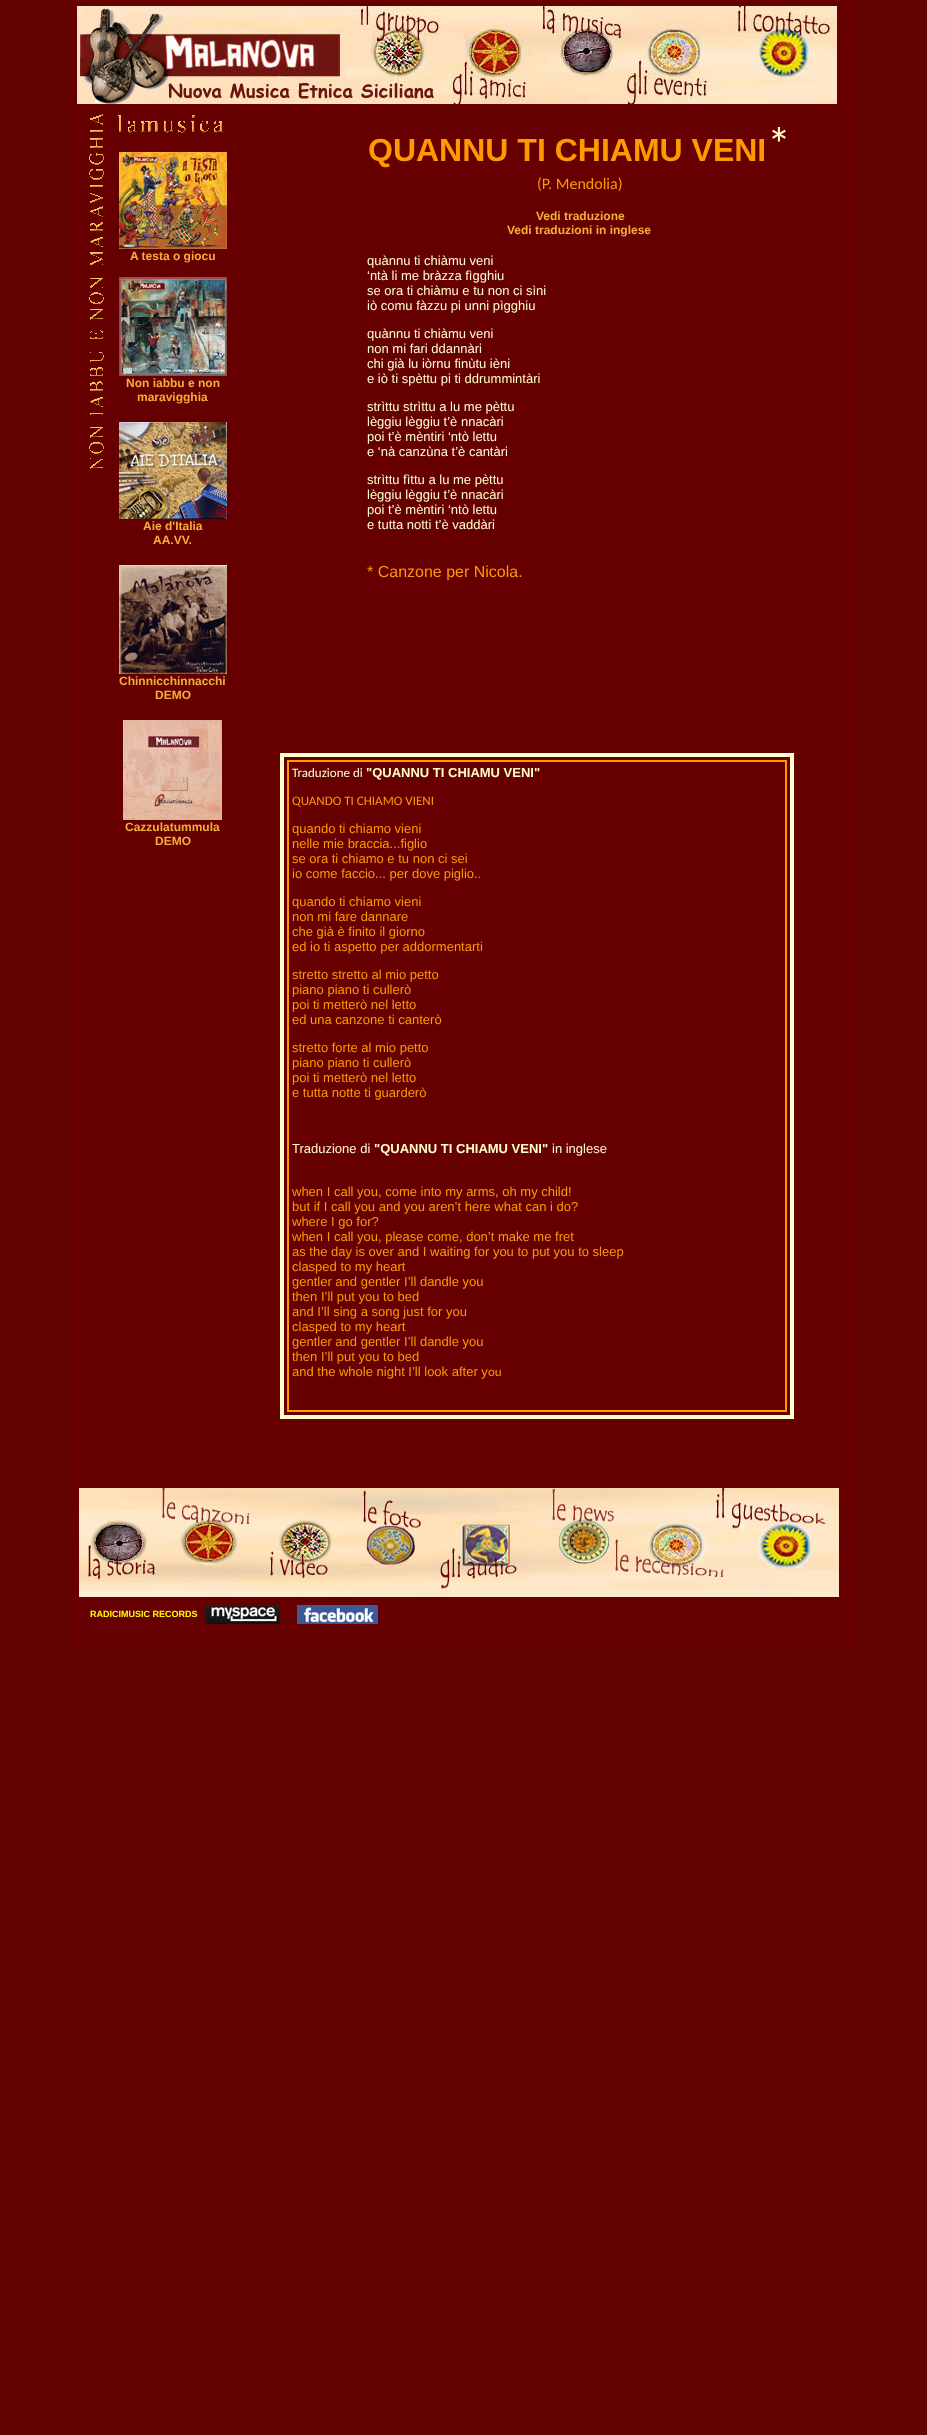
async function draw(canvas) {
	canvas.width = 927;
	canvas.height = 2435;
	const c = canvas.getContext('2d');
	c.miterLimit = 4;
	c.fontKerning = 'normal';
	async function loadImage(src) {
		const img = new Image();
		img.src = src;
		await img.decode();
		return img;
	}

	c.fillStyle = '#630400';
	c.fillRect(0, 0, 927, 2435);
	c.fillStyle = '#600';
	c.fillRect(71, 0, 785, 1650);
	c.drawImage(await loadImage('img1.png'), 77, 6, 760, 98);
	c.drawImage(await loadImage('img2.png'), 89, 114, 15, 355);
	c.drawImage(await loadImage('img3.png'), 118, 115, 105, 18);
	c.drawImage(await loadImage('img4.png'), 119, 152, 108, 97);
	c.font = 'bold 12px Liberation Sans';
	c.fillStyle = '#f3af37';
	c.fillText('A testa o giocu', 130, 260);
	c.drawImage(await loadImage('img5.png'), 119, 277, 108, 99);
	c.fillText('Non iabbu e non', 126, 387);
	c.fillText('maravigghia', 137, 401);
	c.drawImage(await loadImage('img6.png'), 119, 422, 108, 97);
	c.fillText('Aie d\'Italia', 143, 530);
	c.fillText('AA.VV.', 153, 544);
	c.drawImage(await loadImage('img7.png'), 119, 565, 108, 109);
	c.fillText('Chinnicchinnacchi', 119, 685);
	c.fillText('DEMO', 155, 699);
	c.drawImage(await loadImage('img8.png'), 123, 720, 99, 100);
	c.fillText('Cazzulatummula', 125, 831);
	c.fillText('DEMO', 155, 845);
	c.font = '48px Carlito';
	c.fillStyle = '#ffc';
	c.fillText('*', 767, 161);
	c.font = 'bold 32px Liberation Sans';
	c.fillStyle = '#f90';
	c.fillText('QUANNU TI CHIAMU VENI', 368, 161);
	c.font = '16px Carlito';
	c.fillText('(P. Mendolia)', 537, 189);
	c.font = 'bold 12px Liberation Sans';
	c.fillStyle = '#f3af37';
	c.fillText('Vedi traduzione', 536, 220);
	c.fillText('Vedi traduzioni in inglese', 507, 234);
	c.font = '13px Liberation Sans';
	c.fillStyle = '#ffc';
	for (const [text, x, y] of [
		['quànnu ti chiàmu veni', 367, 265],
		['‘ntà li me bràzza fìgghiu', 367, 280],
		['se ora ti chiàmu e tu non ci sìni', 367, 295],
		['iò comu fàzzu pi unni pìgghiu', 367, 310],
		['quànnu ti chiàmu veni', 367, 338],
		['non mi fari ddannàri', 367, 353],
		['chi già lu iòrnu finùtu ièni', 367, 368],
		['e iò ti spèttu pi ti ddrummintàri', 367, 383],
		['strìttu strìttu a lu me pèttu', 367, 411],
		['lèggiu lèggiu t’è nnacàri', 367, 426],
		['poi t’è mèntiri ‘ntò lettu', 367, 441],
		['e ‘nà canzùna t’è cantàri', 367, 456],
		['strìttu fìttu a lu me pèttu', 367, 484],
		['lèggiu lèggiu t’è nnacàri', 367, 499],
		['poi t’è mèntiri ‘ntò lettu', 367, 514],
		['e tutta notti t’è vaddàri', 367, 529],
	]) {
		c.fillText(text, x, y);
	}
	c.font = '16px Liberation Sans';
	c.fillStyle = '#f90';
	c.fillText('* Canzone per Nicola.', 367, 577);
	c.strokeStyle = '#ffc';
	c.lineWidth = 3;
	c.strokeRect(281.5, 754.5, 511, 663);
	c.lineWidth = 1;
	c.strokeRect(283.5, 756.5, 507, 659);
	c.strokeStyle = '#f90';
	c.strokeRect(287.5, 760.5, 499, 651);
	c.strokeRect(288.5, 761.5, 497, 649);
	c.font = '13px Carlito';
	c.fillStyle = '#ffc';
	c.fillText('Traduzione di', 292, 777);
	c.font = 'bold 13px Liberation Sans';
	c.fillText('"QUANNU TI CHIAMU VENI"', 366, 777);
	c.font = '13px Carlito';
	c.fillStyle = '#f90';
	c.fillText('QUANDO TI CHIAMO VIENI', 292, 805);
	c.font = '13px Liberation Sans';
	for (const [text, x, y] of [
		['quando ti chiamo vieni', 292, 833],
		['nelle mie braccia...figlio', 292, 848],
		['se ora ti chiamo e tu non ci sei', 292, 863],
		['io come faccio... per dove piglio..', 292, 878],
		['quando ti chiamo vieni', 292, 906],
		['non mi fare dannare', 292, 921],
		['che già è finito il giorno', 292, 936],
		['ed io ti aspetto per addormentarti', 292, 951],
		['stretto stretto al mio petto', 292, 979],
		['piano piano ti cullerò', 292, 994],
		['poi ti metterò nel letto', 292, 1009],
		['ed una canzone ti canterò', 292, 1024],
		['stretto forte al mio petto', 292, 1052],
		['piano piano ti cullerò', 292, 1067],
		['poi ti metterò nel letto', 292, 1082],
		['e tutta notte ti guarderò', 292, 1097],
	]) {
		c.fillText(text, x, y);
	}
	c.fillStyle = '#ffc';
	c.fillText('Traduzione di', 292, 1153);
	c.font = 'bold 13px Liberation Sans';
	c.fillText('"QUANNU TI CHIAMU VENI"', 374, 1153);
	c.font = '13px Liberation Sans';
	c.fillText('in inglese', 552, 1153);
	c.fillStyle = '#f90';
	for (const [text, x, y] of [
		['when I call you, come into my arms, oh my child!', 292, 1196],
		['but if I call you and you aren’t here what can i do?', 292, 1211],
		['where I go for?', 292, 1226],
		['when I call you, please come, don’t make me fret', 292, 1241],
		['as the day is over and I waiting for you to put you to sleep', 292, 1256],
		['clasped to my heart', 292, 1271],
		['gentler and gentler I’ll dandle you', 292, 1286],
		['then I’ll put you to bed', 292, 1301],
		['and I’ll sing a song just for you', 292, 1316],
		['clasped to my heart', 292, 1331],
		['gentler and gentler I’ll dandle you', 292, 1346],
		['then I’ll put you to bed', 292, 1361],
		['and the whole night I’ll look after y', 292, 1376],
	]) {
		c.fillText(text, x, y);
	}
	c.font = '13px Carlito';
	c.fillText('ou', 488, 1376);
	c.drawImage(await loadImage('img9.png'), 79, 1488, 760, 109);
	c.font = 'bold 9px Liberation Sans';
	c.fillStyle = '#ff0';
	c.fillText('RADICIMUSIC RECORDS', 90, 1617);
	c.drawImage(await loadImage('img10.png'), 206, 1605, 74, 19);
	c.drawImage(await loadImage('img11.png'), 297, 1605, 81, 19);
}

draw(document.querySelector('canvas'));
